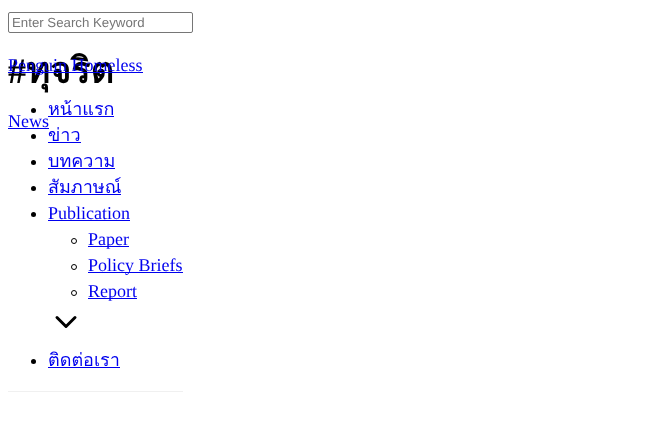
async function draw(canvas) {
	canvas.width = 647;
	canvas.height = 437;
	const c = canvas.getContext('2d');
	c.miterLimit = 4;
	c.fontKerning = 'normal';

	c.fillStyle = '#fff';
	c.fillRect(0, 0, 647, 437);
	c.beginPath();
	c.roundRect(8.5, 12.5, 184, 20, 1.5);
	c.strokeStyle = '#767676';
	c.stroke();
	c.font = '13.25px Liberation Sans';
	c.fillStyle = '#757575';
	c.fillText('Enter Search Keyword', 12, 27);
	c.font = 'bold 36px Liberation Serif';
	c.fillStyle = '#000';
	c.fillText('#', 8, 83);
	c.font = 'bold 36px Loma';
	c.fillText('ทุจริต', 26, 83);
	c.font = '18px Liberation Serif';
	c.fillStyle = '#00e';
	c.fillText('News', 8, 127);
	for (const [x, y, w, h, color] of [
		[8, 128, 41, 1, '#00e'],
		[8, 391, 175, 1, '#f0f0f0'],
		[8, 72, 135, 1, '#00e'],
	]) {
		c.fillStyle = color;
		c.fillRect(x, y, w, h);
	}
	c.fillText('Penguin Homeless', 8, 71);
	c.fillStyle = '#000';
	c.beginPath();
	c.arc(33.5, 110.5, 2.5, 0, 2 * Math.PI);
	c.fill();
	c.font = '18px Loma';
	c.fillStyle = '#00e';
	c.fillText('หน้าแรก', 48, 115);
	c.fillRect(48, 116, 66, 1);
	c.fillStyle = '#000';
	c.beginPath();
	c.arc(33.5, 136.5, 2.5, 0, 2 * Math.PI);
	c.fill();
	c.fillStyle = '#00e';
	c.fillText('ข่าว', 48, 141);
	c.fillRect(48, 142, 33, 1);
	c.fillStyle = '#000';
	c.beginPath();
	c.arc(33.5, 162.5, 2.5, 0, 2 * Math.PI);
	c.fill();
	c.fillStyle = '#00e';
	c.fillText('บทความ', 48, 167);
	c.fillRect(48, 168, 67, 1);
	c.fillStyle = '#000';
	c.beginPath();
	c.arc(33.5, 188.5, 2.5, 0, 2 * Math.PI);
	c.fill();
	c.fillStyle = '#00e';
	c.fillText('สัมภาษณ์', 48, 193);
	c.fillRect(48, 194, 73, 1);
	c.fillStyle = '#000';
	c.beginPath();
	c.arc(33.5, 214.5, 2.5, 0, 2 * Math.PI);
	c.fill();
	c.font = '18px Liberation Serif';
	c.fillStyle = '#00e';
	c.fillText('Publication', 48, 219);
	c.fillRect(48, 220, 82, 1);
	c.beginPath();
	c.arc(74, 241, 2.5, 0, 2 * Math.PI);
	c.strokeStyle = '#000';
	c.stroke();
	c.fillRect(88, 246, 41, 1);
	c.fillText('Paper', 88, 245);
	c.beginPath();
	c.arc(74, 267, 2.5, 0, 2 * Math.PI);
	c.stroke();
	c.fillRect(88, 272, 95, 1);
	c.fillText('Policy Briefs', 88, 271);
	c.beginPath();
	c.arc(74, 293, 2.5, 0, 2 * Math.PI);
	c.stroke();
	c.fillRect(88, 298, 49, 1);
	c.fillText('Report', 88, 297);
	c.beginPath();
	c.moveTo(57, 317.5);
	c.lineTo(66, 326.5);
	c.lineTo(75, 317.5);
	c.lineWidth = 3;
	c.lineCap = 'round';
	c.lineJoin = 'round';
	c.stroke();
	c.fillStyle = '#000';
	c.beginPath();
	c.arc(33.5, 361.5, 2.5, 0, 2 * Math.PI);
	c.fill();
	c.font = '18px Loma';
	c.fillStyle = '#00e';
	c.fillText('ติดต่อเรา', 48, 366);
	c.fillRect(48, 367, 72, 1);
}

draw(document.querySelector('canvas'));
